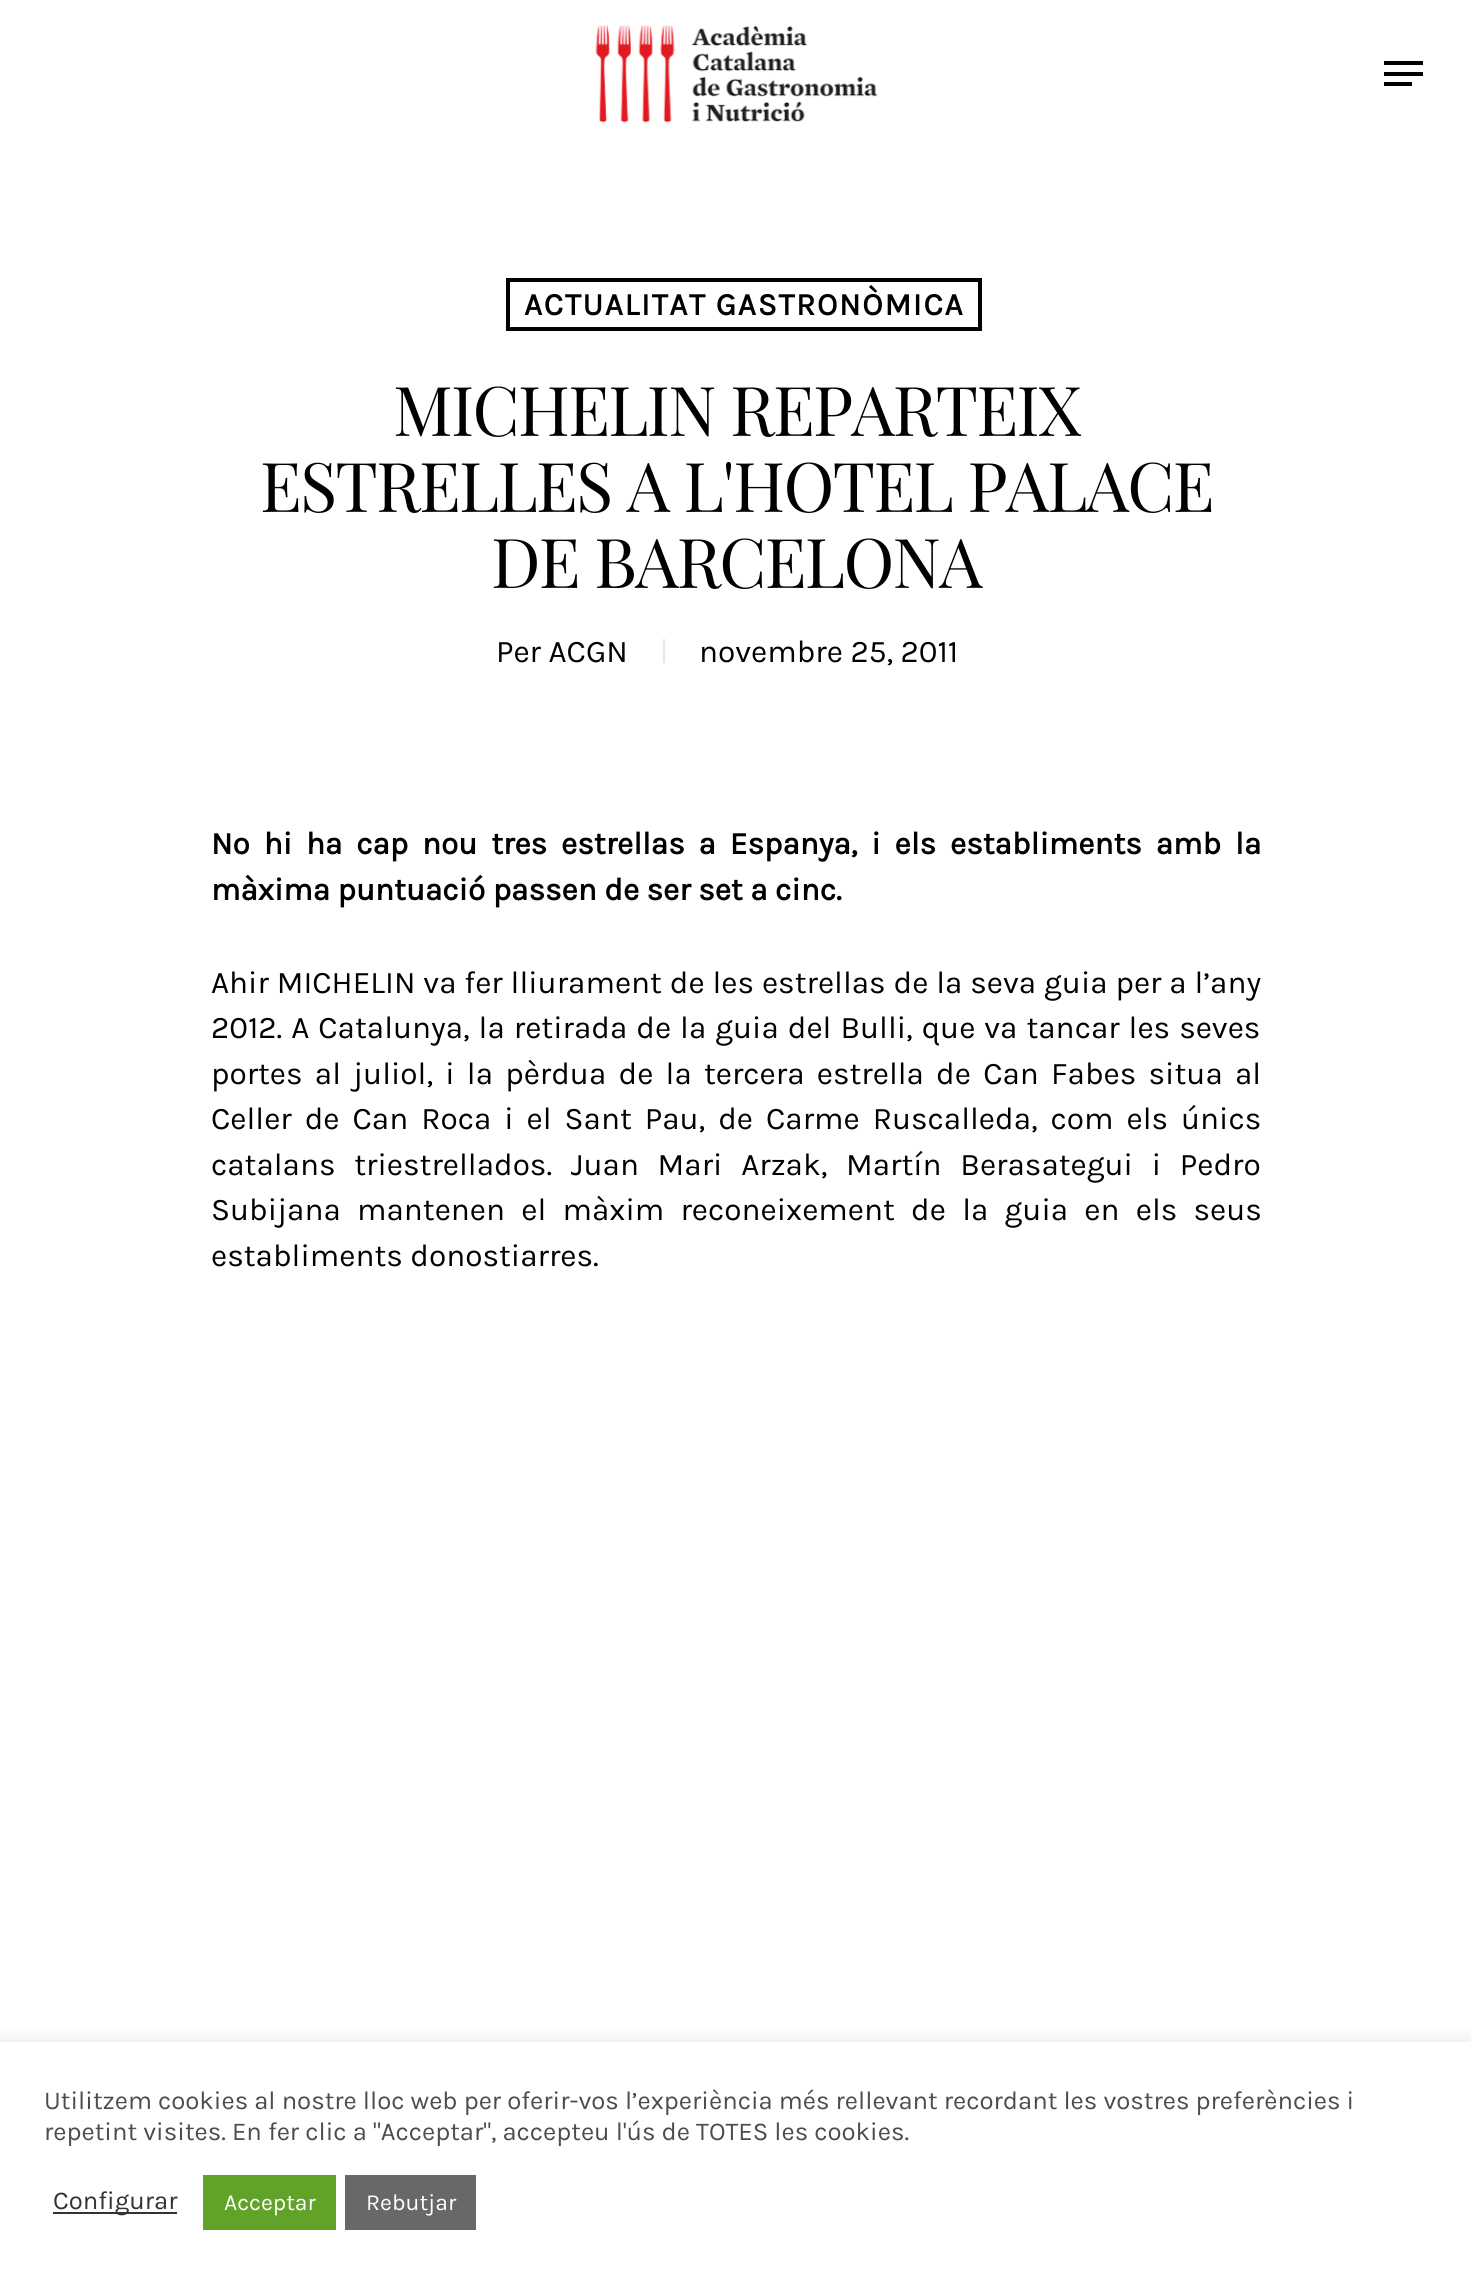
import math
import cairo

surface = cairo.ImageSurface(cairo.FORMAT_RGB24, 1471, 2282)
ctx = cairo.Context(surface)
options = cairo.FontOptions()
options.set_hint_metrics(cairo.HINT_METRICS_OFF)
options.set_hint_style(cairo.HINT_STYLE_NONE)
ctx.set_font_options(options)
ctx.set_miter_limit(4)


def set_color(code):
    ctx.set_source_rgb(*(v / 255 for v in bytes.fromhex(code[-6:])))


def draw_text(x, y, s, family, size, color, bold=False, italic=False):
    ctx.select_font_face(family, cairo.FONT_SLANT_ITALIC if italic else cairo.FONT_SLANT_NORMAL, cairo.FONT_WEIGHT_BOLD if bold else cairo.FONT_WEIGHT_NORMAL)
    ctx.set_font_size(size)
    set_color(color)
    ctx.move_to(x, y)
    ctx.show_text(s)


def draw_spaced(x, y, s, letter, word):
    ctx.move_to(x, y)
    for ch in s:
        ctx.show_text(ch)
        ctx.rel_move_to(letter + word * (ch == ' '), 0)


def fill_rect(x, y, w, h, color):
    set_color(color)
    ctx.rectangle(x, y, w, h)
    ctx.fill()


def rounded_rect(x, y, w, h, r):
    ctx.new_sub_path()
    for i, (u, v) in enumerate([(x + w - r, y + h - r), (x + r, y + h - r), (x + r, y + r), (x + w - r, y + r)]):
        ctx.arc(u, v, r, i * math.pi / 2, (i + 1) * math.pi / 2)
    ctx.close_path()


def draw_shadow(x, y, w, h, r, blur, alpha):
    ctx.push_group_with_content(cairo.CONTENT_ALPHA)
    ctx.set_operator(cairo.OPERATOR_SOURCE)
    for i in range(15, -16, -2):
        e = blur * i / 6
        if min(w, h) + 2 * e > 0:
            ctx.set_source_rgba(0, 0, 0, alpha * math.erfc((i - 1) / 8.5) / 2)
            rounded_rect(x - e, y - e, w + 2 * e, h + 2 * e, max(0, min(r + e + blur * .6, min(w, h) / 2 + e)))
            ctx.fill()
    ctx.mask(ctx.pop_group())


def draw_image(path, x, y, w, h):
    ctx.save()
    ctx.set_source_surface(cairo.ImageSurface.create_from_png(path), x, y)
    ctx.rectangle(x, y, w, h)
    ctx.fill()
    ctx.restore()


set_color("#ffffff")
ctx.paint()
draw_image("assets/img1.png", 595, 25, 283, 98)
fill_rect(1384, 61, 39, 4, "#000000")
fill_rect(1384, 82, 28, 4, "#000000")
fill_rect(1384, 72, 39, 4, "#000000")
ctx.rectangle(508, 280, 472, 49)
ctx.set_line_width(4)
ctx.stroke()
ctx.select_font_face("Karla", cairo.FONT_SLANT_NORMAL, cairo.FONT_WEIGHT_BOLD)
ctx.set_font_size(31.5)
draw_spaced(524, 315, "ACTUALITAT GASTRONÒMICA", 1.75, 0)
ctx.select_font_face("Playfair Display")
ctx.set_font_size(68.6)
draw_spaced(393, 436, "MICHELIN REPARTEIX", -1.75, 0)
draw_spaced(260, 512, "ESTRELLES A L'HOTEL PALACE", -1.75, 0)
draw_spaced(491, 588, "DE BARCELONA", -1.75, 0)
draw_text(496, 662, "Per ACGN", "Karla", 31.5, "#000000")
fill_rect(663, 639, 2, 24, "#e6e6e6")
draw_text(699, 662, "novembre 25, 2011", "Karla", 31.5, "#000000")
ctx.select_font_face("Karla", cairo.FONT_SLANT_NORMAL, cairo.FONT_WEIGHT_BOLD)
draw_spaced(211, 854, "No hi ha cap nou tres estrellas a Espanya, i els establiments amb la", 0, 6.4)
draw_text(211, 900, "màxima puntuació passen de ser set a cinc.", "Karla", 31.5, "#000000", bold=True)
ctx.select_font_face("Karla")
draw_spaced(211, 993, "Ahir MICHELIN va fer lliurament de les estrellas de la seva guia per a l’any", 0, 0.4)
draw_spaced(211, 1038, "2012. A Catalunya, la retirada de la guia del Bulli, que va tancar les seves", 0, 1.5)
draw_spaced(211, 1084, "portes al juliol, i la pèrdua de la tercera estrella de Can Fabes situa al", 0, 4.75)
draw_spaced(211, 1129, "Celler de Can Roca i el Sant Pau, de Carme Ruscalleda, com els únics", 0, 5.5)
draw_spaced(211, 1175, "catalans triestrellados. Juan Mari Arzak, Martín Berasategui i Pedro", 0, 11.25)
draw_spaced(211, 1220, "Subijana mantenen el màxim reconeixement de la guia en els seus", 0, 8.75)
draw_text(211, 1266, "establiments donostiarres.", "Karla", 31.5, "#000000")
set_color("#acabab")
draw_shadow(0, 2041, 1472, 239, 0, 9, 0.3)
fill_rect(0, 2042, 1471, 240, "#ffffff")
draw_text(44, 2109, "Utilitzem cookies al nostre lloc web per oferir-vos l’experiència més rellevant recordant les vostres preferències i", "Karla", 25.67, "#4c4c4c")
draw_text(44, 2140, "repetint visites. En fer clic a \"Acceptar\", accepteu l'ús de TOTES les cookies.", "Karla", 25.67, "#4c4c4c")
fill_rect(53, 2212, 124, 2, "#333333")
draw_text(53, 2209, "Configurar", "Karla", 25.67, "#333333")
fill_rect(203, 2175, 133, 55, "#61a229")
draw_text(224, 2210, "Acceptar", "Karla", 23, "#ffffff")
fill_rect(345, 2175, 131, 55, "#686868")
draw_text(366, 2210, "Rebutjar", "Karla", 23, "#ffffff")
surface.write_to_png("output.png")
